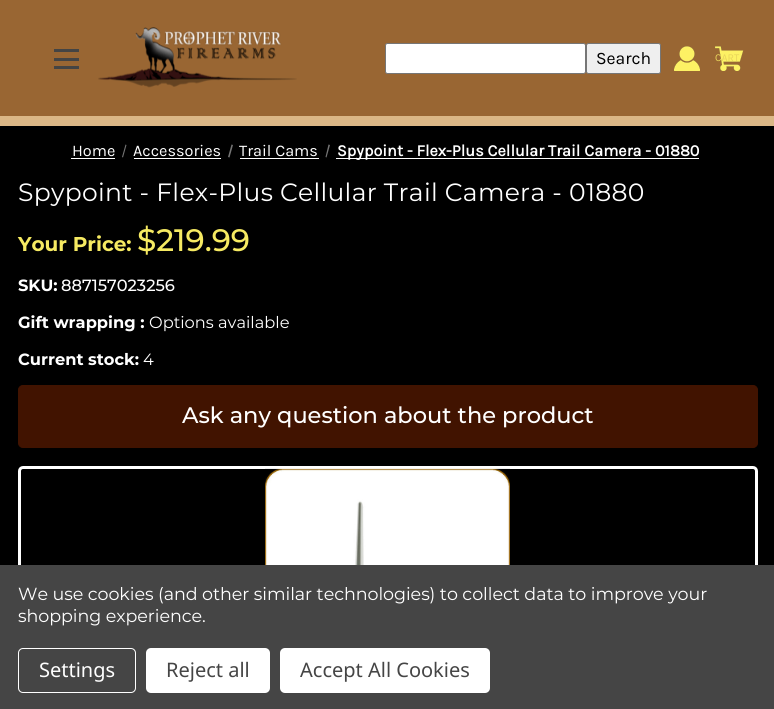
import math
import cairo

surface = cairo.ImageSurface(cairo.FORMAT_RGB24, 774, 709)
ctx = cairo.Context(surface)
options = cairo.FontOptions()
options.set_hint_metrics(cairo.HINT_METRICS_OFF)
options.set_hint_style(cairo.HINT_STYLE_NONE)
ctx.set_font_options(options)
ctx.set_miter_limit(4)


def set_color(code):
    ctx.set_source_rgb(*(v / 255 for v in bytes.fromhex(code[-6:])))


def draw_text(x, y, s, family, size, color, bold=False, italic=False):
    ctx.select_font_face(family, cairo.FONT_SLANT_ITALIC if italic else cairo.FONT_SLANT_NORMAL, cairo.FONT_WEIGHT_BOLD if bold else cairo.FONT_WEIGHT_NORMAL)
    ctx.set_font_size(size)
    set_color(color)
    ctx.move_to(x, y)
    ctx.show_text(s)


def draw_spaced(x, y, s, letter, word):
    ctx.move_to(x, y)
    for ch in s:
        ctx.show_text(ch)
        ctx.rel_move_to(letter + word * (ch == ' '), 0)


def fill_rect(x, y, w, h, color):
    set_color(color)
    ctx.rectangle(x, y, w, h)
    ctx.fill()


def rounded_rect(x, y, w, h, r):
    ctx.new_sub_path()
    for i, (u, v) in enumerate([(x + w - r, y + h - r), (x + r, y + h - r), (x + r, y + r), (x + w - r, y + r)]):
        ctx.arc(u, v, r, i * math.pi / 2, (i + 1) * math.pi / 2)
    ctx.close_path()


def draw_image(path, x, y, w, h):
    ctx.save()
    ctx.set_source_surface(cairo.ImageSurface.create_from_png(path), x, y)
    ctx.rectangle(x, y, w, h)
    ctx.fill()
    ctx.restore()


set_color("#000000")
ctx.paint()
fill_rect(0, 0, 774, 116, "#996633")
fill_rect(0, 116, 774, 10, "#dbb786")
fill_rect(54, 58, 25, 3, "#444444")
fill_rect(54, 49, 25, 3, "#444444")
fill_rect(54, 66, 25, 3, "#444444")
draw_image("assets/img1.png", 98, 27, 199, 61)
set_color("#ffffff")
rounded_rect(385.5, 43.5, 200, 30, 2)
ctx.fill_preserve()
set_color("#767676")
ctx.set_line_width(1)
ctx.stroke()
set_color("#efefef")
rounded_rect(586.5, 43.5, 74, 30, 2)
ctx.fill_preserve()
set_color("#767676")
ctx.stroke()
draw_text(596, 64, "Search", "Karla", 17.5, "#000000")
draw_image("assets/img2.png", 674, 46, 26, 25)
draw_image("assets/img3.png", 715, 46, 29, 25)
draw_text(715, 61, "CART", "Karla", 10.5, "#e8d45a")
draw_text(72, 156, "Home", "Karla", 16.25, "#ffffff")
fill_rect(71, 158, 44, 1, "#ffffff")
set_color("#757575")
ctx.new_path()
ctx.move_to(125.5, 144.5)
ctx.line_to(126.5, 145)
ctx.line_to(123, 157.5)
ctx.line_to(122, 157)
ctx.close_path()
ctx.fill()
draw_text(133, 156, "Accessories", "Karla", 16.25, "#ffffff")
fill_rect(134, 158, 87, 1, "#ffffff")
set_color("#757575")
ctx.new_path()
ctx.move_to(231.5, 144.5)
ctx.line_to(233, 145)
ctx.line_to(229.5, 157.5)
ctx.line_to(228, 157)
ctx.close_path()
ctx.fill()
draw_text(239, 156, "Trail Cams", "Karla", 16.25, "#ffffff")
fill_rect(240, 158, 79, 1, "#ffffff")
set_color("#757575")
ctx.new_path()
ctx.move_to(328.5, 144.5)
ctx.line_to(330, 145)
ctx.line_to(326.5, 157.5)
ctx.line_to(325.5, 157)
ctx.close_path()
ctx.fill()
fill_rect(336, 158, 363, 1, "#ffffff")
draw_text(337, 156, "Spypoint - Flex-Plus Cellular Trail Camera - 01880", "Karla", 16.25, "#ffffff", bold=True)
ctx.select_font_face("Montserrat")
ctx.set_font_size(25)
draw_spaced(18, 201, "Spypoint - Flex-Plus Cellular Trail Camera - 01880", 0.3, 0)
draw_text(18, 251, "Your Price:", "Montserrat", 20, "#f6ea62", bold=True)
draw_text(137, 251, "$219.99", "Montserrat Medium", 31, "#f6ea62")
draw_text(18, 291, "SKU:", "Montserrat", 16.25, "#ffffff", bold=True)
draw_text(61, 291, "887157023256", "Montserrat Medium", 16.25, "#ffffff")
draw_text(18, 328, "Gift wrapping :", "Montserrat", 16.25, "#ffffff", bold=True)
draw_text(149, 328, "Options available", "Montserrat", 16.25, "#ffffff")
draw_text(18, 365, "Current stock:", "Montserrat", 16.25, "#ffffff", bold=True)
draw_text(143, 365, "4", "Montserrat", 16.25, "#ffffff")
set_color("#411300")
rounded_rect(18.5, 385.5, 739, 62, 4.5)
ctx.fill_preserve()
ctx.stroke()
draw_text(182, 423, "Ask any question about the product", "Montserrat Medium", 22.5, "#ffffff")
rounded_rect(19.5, 467.5, 737, 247, 3.5)
ctx.set_line_width(3)
ctx.stroke()
draw_image("assets/img4.png", 265, 468, 245, 97)
fill_rect(0, 565, 774, 144, "#454545")
ctx.select_font_face("Montserrat")
ctx.set_font_size(17.5)
set_color("#ffffff")
draw_spaced(18, 600, "We use cookies (and other similar technologies) to collect data to improve your", -0.05, 0)
draw_spaced(18, 622, "shopping experience.", -0.05, 0)
rounded_rect(18.5, 648.5, 117, 44, 4.5)
ctx.set_line_width(1)
ctx.stroke()
draw_text(39, 677, "Settings", "Noto Sans", 20, "#ffffff")
rounded_rect(146, 648, 124, 45, 5)
ctx.fill()
draw_text(166, 677, "Reject all", "Noto Sans", 20, "#454545")
set_color("#ffffff")
rounded_rect(280, 648, 210, 45, 5)
ctx.fill()
draw_text(300, 677, "Accept All Cookies", "Noto Sans", 20, "#454545")
surface.write_to_png("output.png")
